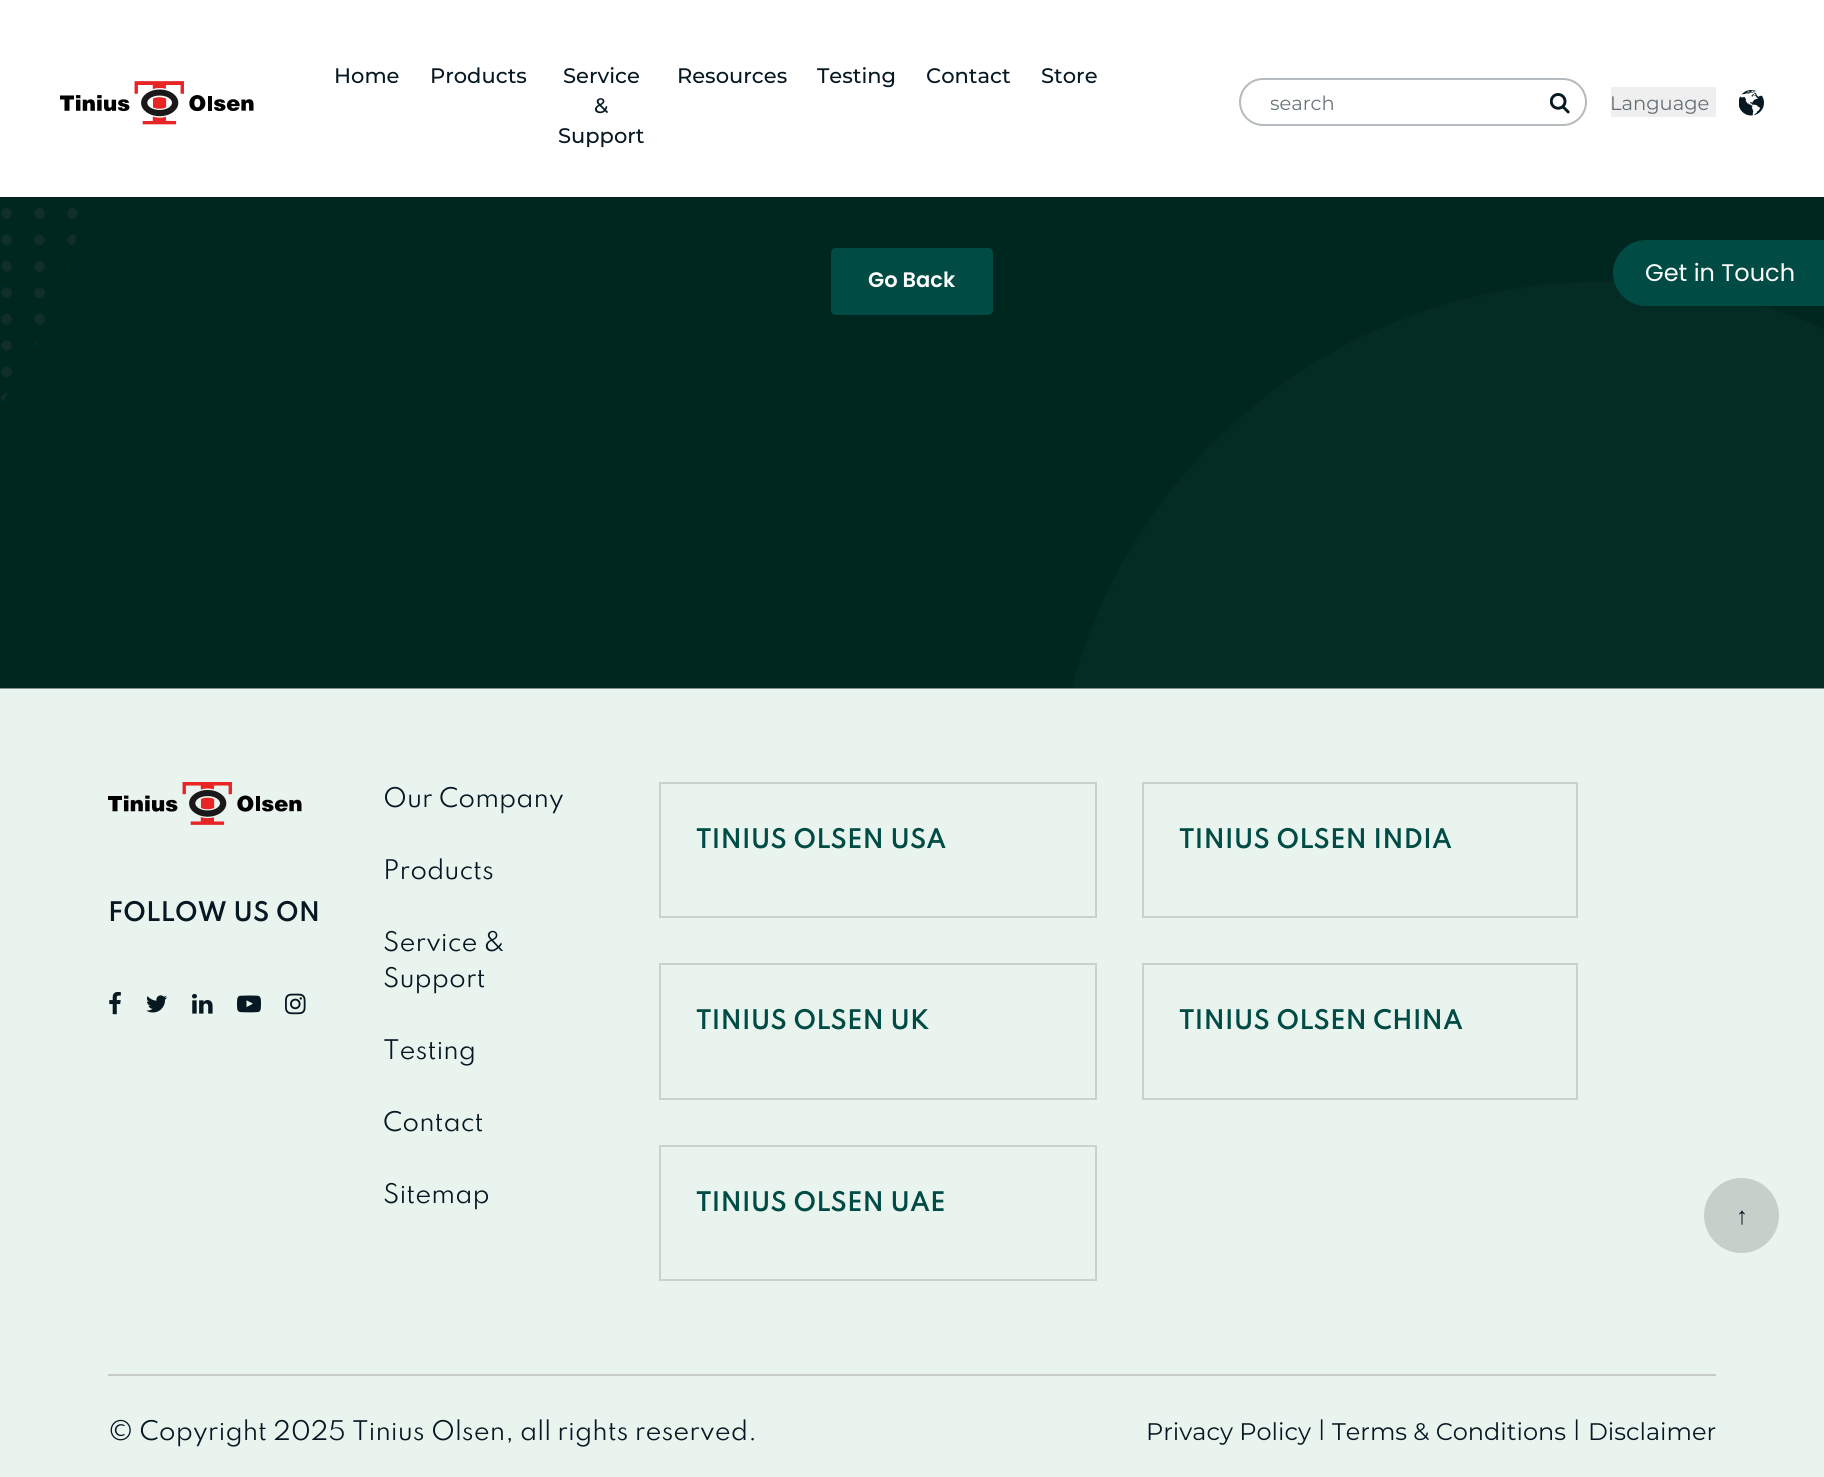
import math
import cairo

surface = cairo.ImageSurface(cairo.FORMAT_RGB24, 1824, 1477)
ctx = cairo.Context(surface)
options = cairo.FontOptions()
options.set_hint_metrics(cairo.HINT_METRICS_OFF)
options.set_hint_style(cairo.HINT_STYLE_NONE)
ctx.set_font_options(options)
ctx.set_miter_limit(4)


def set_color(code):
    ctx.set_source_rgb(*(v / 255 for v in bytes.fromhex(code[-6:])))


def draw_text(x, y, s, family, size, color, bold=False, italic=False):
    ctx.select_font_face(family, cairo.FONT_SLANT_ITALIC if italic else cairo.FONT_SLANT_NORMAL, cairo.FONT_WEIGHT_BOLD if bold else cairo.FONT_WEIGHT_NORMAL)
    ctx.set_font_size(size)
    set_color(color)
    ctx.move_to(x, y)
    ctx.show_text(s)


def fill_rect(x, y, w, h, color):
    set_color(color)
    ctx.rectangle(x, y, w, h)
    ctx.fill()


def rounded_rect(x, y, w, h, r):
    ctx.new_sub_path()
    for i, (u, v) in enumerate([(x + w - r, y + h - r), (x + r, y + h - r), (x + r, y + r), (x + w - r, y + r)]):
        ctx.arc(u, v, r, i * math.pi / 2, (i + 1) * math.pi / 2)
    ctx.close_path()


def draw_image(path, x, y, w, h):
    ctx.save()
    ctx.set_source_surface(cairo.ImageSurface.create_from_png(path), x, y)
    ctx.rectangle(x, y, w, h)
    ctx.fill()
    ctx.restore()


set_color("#ffffff")
ctx.paint()
draw_image("assets/img1.png", 60, 81, 194, 44)
draw_text(334, 83, "Home", "Montserrat Medium", 21, "#061922")
draw_text(430, 83, "Products", "Montserrat Medium", 21, "#061922")
draw_text(563, 83, "Service", "Montserrat Medium", 21, "#061922")
draw_text(594, 113, "&", "Montserrat Medium", 21, "#061922")
draw_text(558, 143, "Support", "Montserrat Medium", 21, "#061922")
draw_text(677, 83, "Resources", "Montserrat Medium", 21, "#061922")
draw_text(817, 83, "Testing", "Montserrat Medium", 21, "#061922")
draw_text(926, 83, "Contact", "Montserrat Medium", 21, "#061922")
draw_text(1041, 83, "Store", "Montserrat Medium", 21, "#061922")
rounded_rect(1240, 79, 346, 46, 23)
set_color("#b4babd")
ctx.stroke()
ctx.save()
ctx.rectangle(1271, 90, 264, 24)
ctx.clip()
draw_text(1270, 110, "search", "Montserrat Thin", 19.5, "#6a757a")
ctx.restore()
draw_image("assets/img2.png", 1550, 93, 20, 21)
fill_rect(1611, 87, 105, 30, "#efefef")
draw_text(1610, 110, "Language", "Montserrat Thin", 19.5, "#636f74")
draw_image("assets/img3.png", 1739, 90, 25, 26)
draw_image("assets/img4.png", 0, 197, 1824, 492)
set_color("#004c45")
rounded_rect(831, 248, 162, 67, 5)
ctx.fill()
draw_text(868, 287, "Go Back", "Poppins SemiBold", 21, "#ffffff")
fill_rect(0, 689, 1824, 788, "#eaf4ef")
set_color("#004c45")
ctx.new_path()
ctx.move_to(1646, 240)
ctx.line_to(1823, 240)
ctx.curve_to(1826.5, 240, 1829, 242.5, 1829, 246)
ctx.line_to(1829, 300)
ctx.curve_to(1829, 303.5, 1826.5, 306, 1823, 306)
ctx.line_to(1646, 306)
ctx.curve_to(1628, 306, 1613, 291, 1613, 273)
ctx.curve_to(1613, 255, 1628, 240, 1646, 240)
ctx.close_path()
ctx.fill()
draw_text(1645, 281, "Get in Touch", "Poppins", 24, "#ffffff")
fill_rect(108, 1374, 1608, 2, "#c7ccc9")
draw_image("assets/img5.png", 108, 782, 194, 43)
draw_text(108, 921, "FOLLOW US ON", "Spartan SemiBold", 24, "#061922")
draw_image("assets/img6.png", 109, 991, 12, 24)
draw_image("assets/img7.png", 146, 995, 21, 18)
draw_image("assets/img8.png", 192, 993, 21, 21)
draw_image("assets/img9.png", 237, 995, 24, 18)
draw_image("assets/img10.png", 285, 993, 21, 22)
draw_text(383, 807, "Our Company", "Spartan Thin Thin", 24, "#061922")
draw_text(383, 879, "Products", "Spartan Thin Thin", 24, "#061922")
draw_text(383, 951, "Service &", "Spartan Thin Thin", 24, "#061922")
draw_text(383, 987, "Support", "Spartan Thin Thin", 24, "#061922")
draw_text(383, 1059, "Testing", "Spartan Thin Thin", 24, "#061922")
draw_text(383, 1131, "Contact", "Spartan Thin Thin", 24, "#061922")
draw_text(383, 1203, "Sitemap", "Spartan Thin Thin", 24, "#061922")
ctx.rectangle(660, 783, 436, 134)
set_color("#cbd2ce")
ctx.stroke()
draw_text(696, 848, "TINIUS OLSEN USA", "Spartan SemiBold", 24, "#004c45")
ctx.rectangle(660, 964, 436, 135)
set_color("#cbd2ce")
ctx.stroke()
draw_text(696, 1029, "TINIUS OLSEN UK", "Spartan SemiBold", 24, "#004c45")
ctx.rectangle(660, 1146, 436, 134)
set_color("#cbd2ce")
ctx.stroke()
draw_text(696, 1211, "TINIUS OLSEN UAE", "Spartan SemiBold", 24, "#004c45")
ctx.rectangle(1143, 783, 434, 134)
set_color("#cbd2ce")
ctx.stroke()
draw_text(1179, 848, "TINIUS OLSEN INDIA", "Spartan SemiBold", 24, "#004c45")
ctx.rectangle(1143, 964, 434, 135)
set_color("#cbd2ce")
ctx.stroke()
draw_text(1179, 1029, "TINIUS OLSEN CHINA", "Spartan SemiBold", 24, "#004c45")
draw_text(108, 1440, "© Copyright 2025 Tinius Olsen, all rights reserved.", "Spartan Thin Thin", 24, "#061922")
draw_text(1146, 1440, "Privacy Policy", "Montserrat Thin", 24, "#061922")
draw_text(1317, 1440, "|", "Spartan Thin Thin", 24, "#061922")
draw_text(1332, 1440, "Terms & Conditions", "Montserrat Thin", 24, "#061922")
draw_text(1572, 1440, "|", "Spartan Thin Thin", 24, "#061922")
draw_text(1588, 1440, "Disclaimer", "Montserrat Thin", 24, "#061922")
set_color("#c7cfcb")
ctx.new_path()
ctx.arc(1741.5, 1215.5, 37.5, 0, 2 * math.pi)
ctx.fill()
draw_text(1736, 1224, "↑", "Liberation Serif", 24, "#061922")
surface.write_to_png("output.png")
